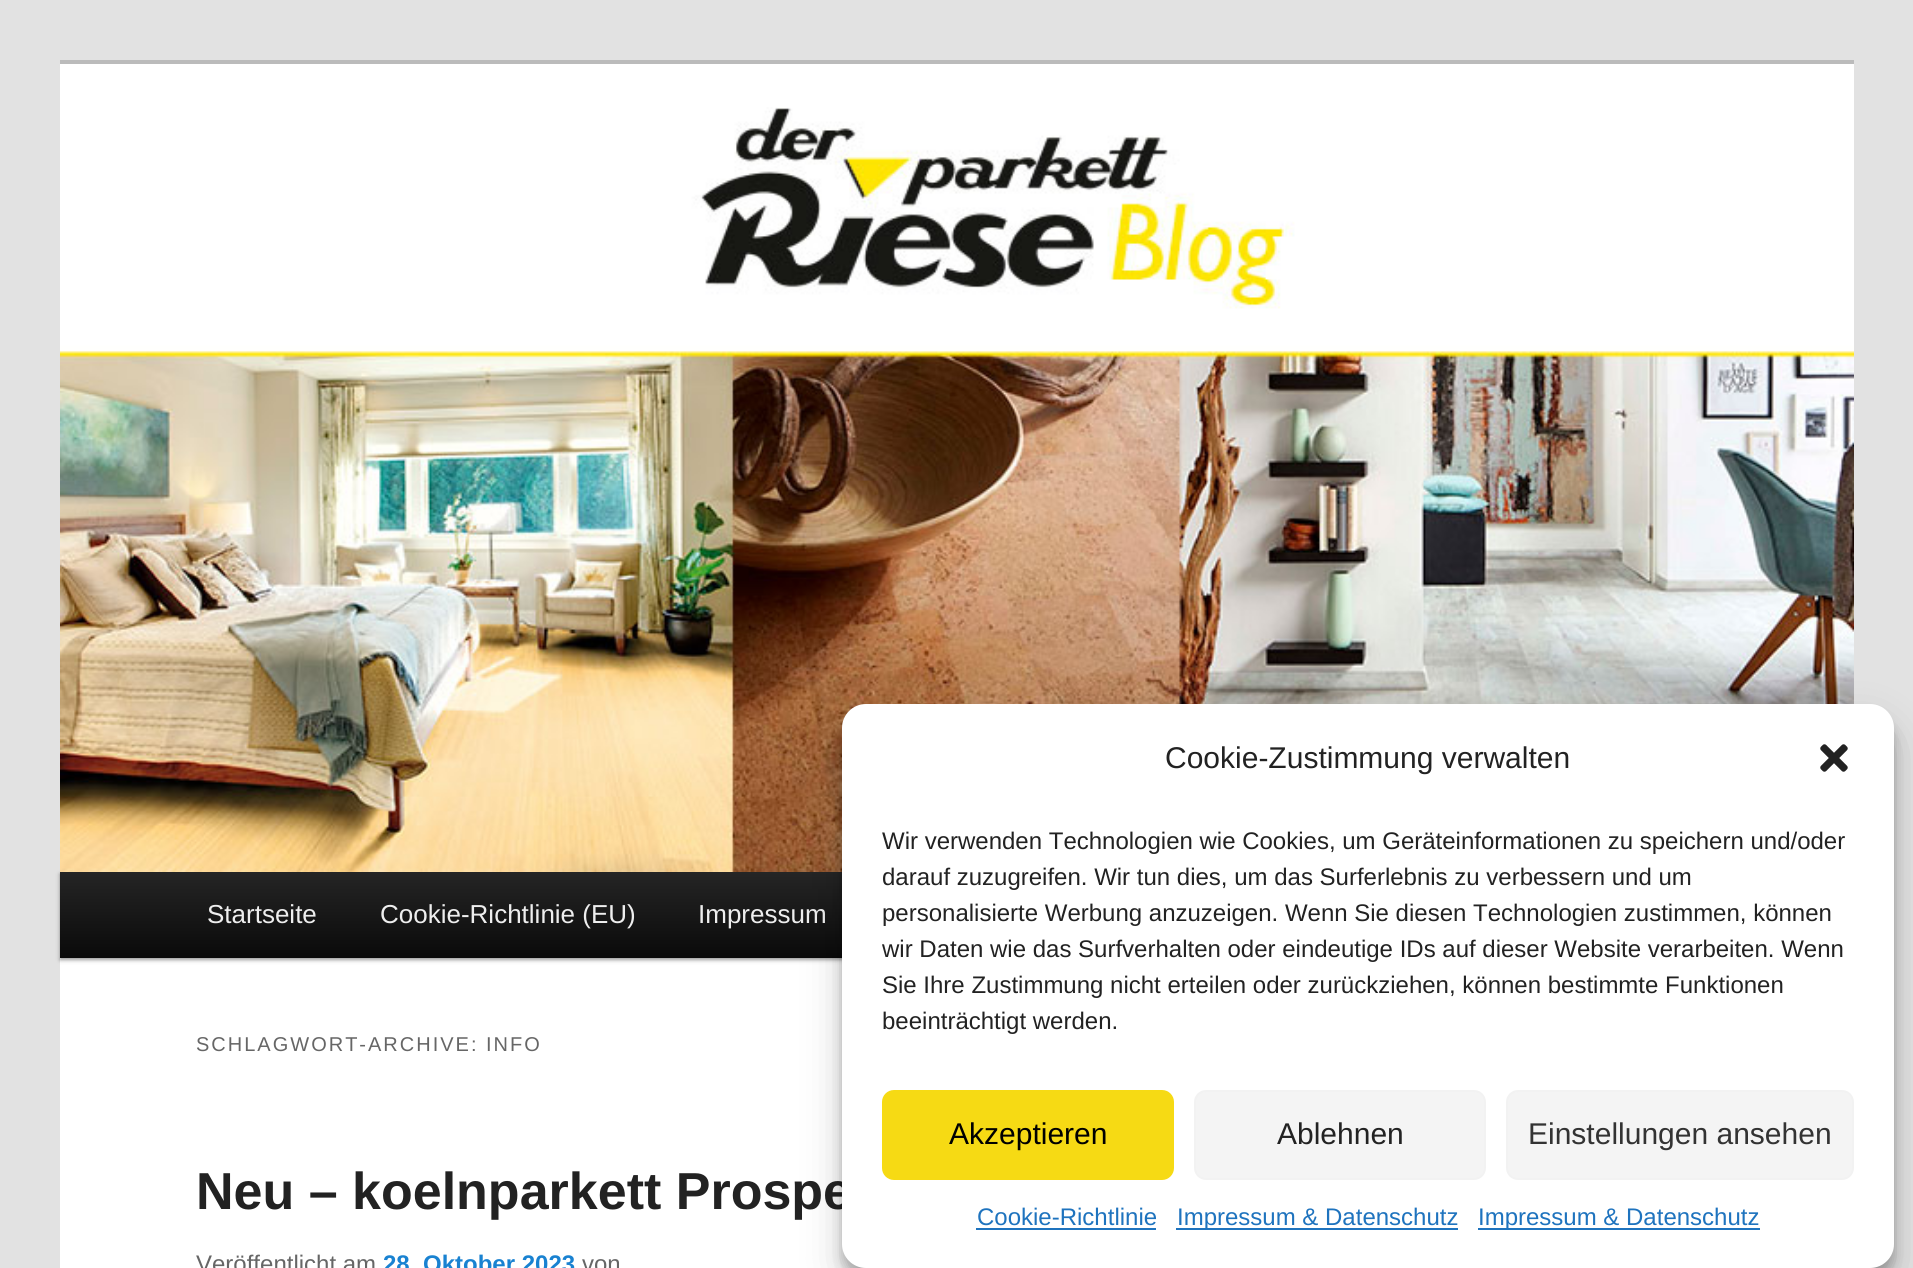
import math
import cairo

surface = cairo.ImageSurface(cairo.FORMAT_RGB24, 1913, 1268)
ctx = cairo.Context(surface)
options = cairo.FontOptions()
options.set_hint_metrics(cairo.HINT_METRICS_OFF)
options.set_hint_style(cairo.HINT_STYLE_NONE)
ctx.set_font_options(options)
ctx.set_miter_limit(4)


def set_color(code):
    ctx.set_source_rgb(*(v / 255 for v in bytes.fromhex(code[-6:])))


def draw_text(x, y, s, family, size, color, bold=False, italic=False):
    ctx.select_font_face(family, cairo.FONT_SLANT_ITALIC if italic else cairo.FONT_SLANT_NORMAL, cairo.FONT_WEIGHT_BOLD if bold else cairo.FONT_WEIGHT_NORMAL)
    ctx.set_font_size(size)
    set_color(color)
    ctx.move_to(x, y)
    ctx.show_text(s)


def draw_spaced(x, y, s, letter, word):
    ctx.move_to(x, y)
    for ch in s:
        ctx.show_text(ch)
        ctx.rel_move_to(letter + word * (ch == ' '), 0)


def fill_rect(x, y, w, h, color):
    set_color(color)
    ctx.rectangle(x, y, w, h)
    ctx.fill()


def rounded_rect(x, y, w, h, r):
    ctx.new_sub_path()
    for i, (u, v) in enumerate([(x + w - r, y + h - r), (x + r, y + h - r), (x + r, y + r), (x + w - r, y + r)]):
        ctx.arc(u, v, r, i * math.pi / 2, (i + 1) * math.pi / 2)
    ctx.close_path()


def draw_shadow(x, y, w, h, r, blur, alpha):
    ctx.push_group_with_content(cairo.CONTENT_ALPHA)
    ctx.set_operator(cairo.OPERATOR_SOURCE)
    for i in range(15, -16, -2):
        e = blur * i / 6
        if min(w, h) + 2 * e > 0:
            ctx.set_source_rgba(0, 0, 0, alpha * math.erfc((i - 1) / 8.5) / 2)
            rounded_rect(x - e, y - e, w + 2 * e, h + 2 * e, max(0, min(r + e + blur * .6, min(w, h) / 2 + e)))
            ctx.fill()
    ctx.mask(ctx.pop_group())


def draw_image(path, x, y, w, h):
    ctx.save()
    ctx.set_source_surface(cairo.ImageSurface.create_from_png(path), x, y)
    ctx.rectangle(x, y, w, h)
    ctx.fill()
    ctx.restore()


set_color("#e2e2e2")
ctx.paint()
fill_rect(60, 64, 1794, 1204, "#ffffff")
fill_rect(60, 60, 1794, 4, "#bbbbbb")
set_color("#000000")
draw_shadow(60, 874, 1794, 86, 0, 2, 0.4)
draw_image("assets/img1.png", 60, 107, 1794, 765)
gradient = cairo.LinearGradient(957, 872, 957, 958)
gradient.add_color_stop_rgba(0, 0.145, 0.145, 0.145, 1)
gradient.add_color_stop_rgba(1, 0.039, 0.039, 0.039, 1)
ctx.set_source(gradient)
ctx.rectangle(60, 872, 782, 86)
ctx.fill()
draw_text(207, 923, "Startseite", "Liberation Sans", 26, "#eeeeee")
draw_text(380, 923, "Cookie-Richtlinie (EU)", "Liberation Sans", 26, "#eeeeee")
draw_text(698, 923, "Impressum", "Liberation Sans", 26, "#eeeeee")
ctx.set_font_size(20)
set_color("#666666")
draw_spaced(196, 1051, "SCHLAGWORT-ARCHIVE: INFO", 2, 0)
draw_text(196, 1209, "Neu – koelnparkett Prospe", "Liberation Sans", 52, "#222222", bold=True)
draw_text(196, 1272, "Veröffentlicht am", "Liberation Sans", 24, "#666666")
draw_text(383, 1272, "28. Oktober 2023", "Liberation Sans", 24, "#1982d1", bold=True)
draw_text(582, 1272, "von", "Liberation Sans", 24, "#666666")
set_color("#000000")
draw_shadow(842, 716, 1052, 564, 24, 6, 0.23)
draw_shadow(842, 724, 1052, 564, 24, 20, 0.19)
set_color("#ffffff")
rounded_rect(842, 704, 1052, 564, 24)
ctx.fill()
draw_text(1165, 768, "Cookie-Zustimmung verwalten", "Liberation Sans", 30, "#222222")
draw_image("assets/img2.png", 1820, 744, 28, 28)
draw_text(882, 849, "Wir verwenden Technologien wie Cookies, um Geräteinformationen zu speichern und/oder", "Liberation Sans", 24, "#222222")
draw_text(882, 885, "darauf zuzugreifen. Wir tun dies, um das Surferlebnis zu verbessern und um", "Liberation Sans", 24, "#222222")
draw_text(882, 921, "personalisierte Werbung anzuzeigen. Wenn Sie diesen Technologien zustimmen, können", "Liberation Sans", 24, "#222222")
draw_text(882, 957, "wir Daten wie das Surfverhalten oder eindeutige IDs auf dieser Website verarbeiten. Wenn", "Liberation Sans", 24, "#222222")
draw_text(882, 993, "Sie Ihre Zustimmung nicht erteilen oder zurückziehen, können bestimmte Funktionen", "Liberation Sans", 24, "#222222")
draw_text(882, 1029, "beeinträchtigt werden.", "Liberation Sans", 24, "#222222")
set_color("#f6da14")
rounded_rect(883, 1091, 290, 88, 11)
ctx.fill_preserve()
ctx.stroke()
draw_text(949, 1144, "Akzeptieren", "Liberation Sans", 30, "#000000")
set_color("#f4f4f4")
rounded_rect(1195, 1091, 290, 88, 11)
ctx.fill_preserve()
set_color("#f2f2f2")
ctx.stroke()
draw_text(1277, 1144, "Ablehnen", "Liberation Sans", 30, "#222222")
set_color("#f4f4f4")
rounded_rect(1507, 1091, 346, 88, 11)
ctx.fill_preserve()
set_color("#f2f2f2")
ctx.stroke()
draw_text(1528, 1144, "Einstellungen ansehen", "Liberation Sans", 30, "#333333")
draw_text(977, 1225, "Cookie-Richtlinie", "Liberation Sans", 24, "#1e73be")
fill_rect(976, 1228, 180, 2, "#1e73be")
fill_rect(1176, 1228, 282, 2, "#1e73be")
draw_text(1177, 1225, "Impressum & Datenschutz", "Liberation Sans", 24, "#1e73be")
fill_rect(1478, 1228, 282, 2, "#1e73be")
draw_text(1478, 1225, "Impressum & Datenschutz", "Liberation Sans", 24, "#1e73be")
surface.write_to_png("output.png")
